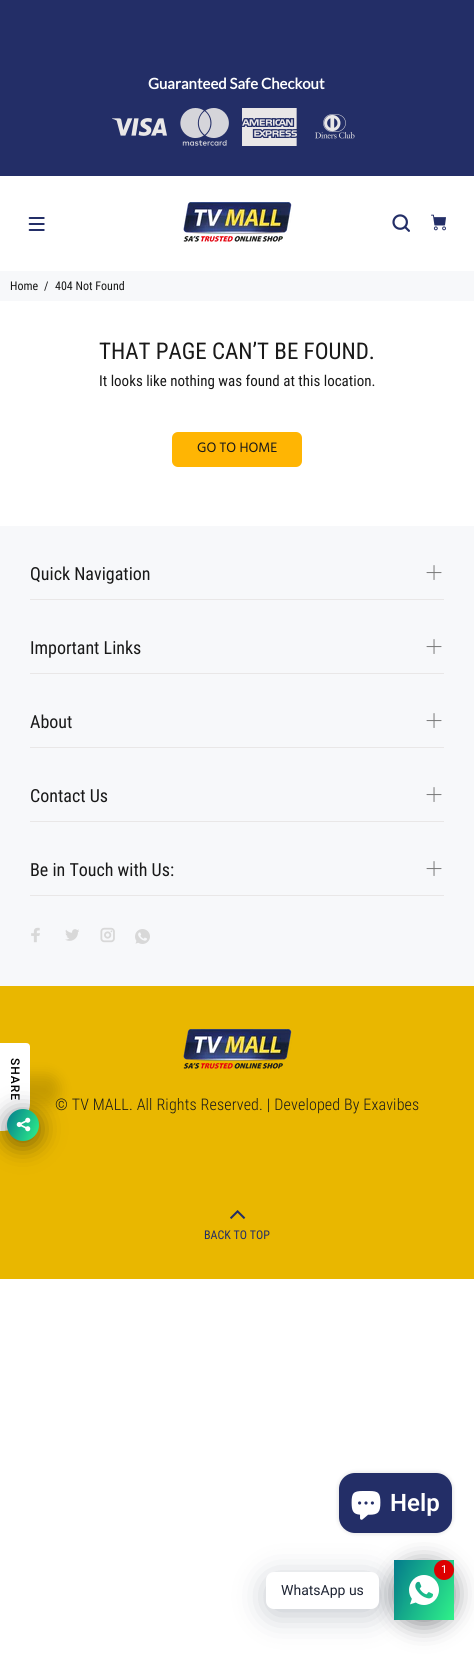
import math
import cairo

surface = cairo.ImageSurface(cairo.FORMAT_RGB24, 474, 1658)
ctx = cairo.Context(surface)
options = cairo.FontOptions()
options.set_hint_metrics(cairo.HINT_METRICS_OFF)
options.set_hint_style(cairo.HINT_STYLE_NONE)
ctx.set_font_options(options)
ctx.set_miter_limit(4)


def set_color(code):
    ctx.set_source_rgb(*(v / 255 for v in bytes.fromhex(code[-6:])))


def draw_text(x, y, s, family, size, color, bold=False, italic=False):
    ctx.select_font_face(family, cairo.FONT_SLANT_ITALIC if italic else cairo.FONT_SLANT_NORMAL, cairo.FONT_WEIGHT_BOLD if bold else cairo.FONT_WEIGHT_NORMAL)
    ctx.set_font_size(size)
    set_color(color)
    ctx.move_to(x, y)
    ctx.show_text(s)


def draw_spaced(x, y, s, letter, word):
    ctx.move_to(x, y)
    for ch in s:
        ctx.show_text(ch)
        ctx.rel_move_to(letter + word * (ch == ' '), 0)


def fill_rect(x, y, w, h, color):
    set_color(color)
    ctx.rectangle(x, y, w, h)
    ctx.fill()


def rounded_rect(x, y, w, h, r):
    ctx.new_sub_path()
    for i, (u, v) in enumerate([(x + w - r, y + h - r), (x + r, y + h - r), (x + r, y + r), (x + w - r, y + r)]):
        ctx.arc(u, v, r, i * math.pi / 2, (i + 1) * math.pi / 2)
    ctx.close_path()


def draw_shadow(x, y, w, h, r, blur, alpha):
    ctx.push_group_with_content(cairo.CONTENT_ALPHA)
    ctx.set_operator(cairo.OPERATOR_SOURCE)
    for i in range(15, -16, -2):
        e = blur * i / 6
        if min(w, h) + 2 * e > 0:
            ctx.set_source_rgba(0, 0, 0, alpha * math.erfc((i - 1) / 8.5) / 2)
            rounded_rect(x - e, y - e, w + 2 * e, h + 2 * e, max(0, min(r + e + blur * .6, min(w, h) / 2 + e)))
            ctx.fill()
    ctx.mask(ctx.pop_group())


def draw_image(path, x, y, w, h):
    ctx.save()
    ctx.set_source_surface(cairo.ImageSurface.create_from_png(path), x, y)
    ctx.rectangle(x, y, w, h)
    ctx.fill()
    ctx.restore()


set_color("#ffffff")
ctx.paint()
fill_rect(0, 0, 474, 176, "#232e67")
draw_text(148, 89, "Guaranteed Safe Checkout", "Lato", 15, "#ffffff", bold=True)
draw_image("assets/img1.png", 112, 118, 55, 18)
draw_image("assets/img2.png", 180, 108, 49, 38)
draw_image("assets/img3.png", 242, 108, 55, 38)
draw_image("assets/img4.png", 315, 114, 40, 25)
draw_image("assets/img5.png", 28, 217, 17, 14)
draw_image("assets/img6.png", 183, 202, 109, 40)
draw_image("assets/img7.png", 392, 214, 18, 18)
draw_image("assets/img8.png", 431, 214, 15, 17)
fill_rect(0, 271, 474, 30, "#f7f8fa")
draw_text(10, 290, "Home", "Roboto Condensed", 12, "#191919")
draw_text(44, 290, "/", "Roboto Condensed", 12, "#191919")
draw_text(55, 290, "404 Not Found", "Roboto Condensed", 12, "#191919")
draw_text(99, 359, "THAT PAGE CAN’T BE FOUND.", "Roboto Condensed", 23, "#191919")
draw_text(99, 386, "It looks like nothing was found at this location.", "Roboto Condensed", 15, "#191919")
set_color("#ffb503")
rounded_rect(172, 432, 130, 35, 6)
ctx.fill()
draw_text(197, 452, "GO TO HOME", "Hind", 14, "#191919")
fill_rect(0, 526, 474, 460, "#f7f8fa")
fill_rect(30, 599, 414, 1, "#e9e7e7")
draw_text(30, 580, "Quick Navigation", "Roboto Condensed", 18, "#191919")
draw_image("assets/img9.png", 426, 565, 16, 15)
fill_rect(30, 673, 414, 1, "#e9e7e7")
draw_text(30, 654, "Important Links", "Roboto Condensed", 18, "#191919")
draw_image("assets/img9.png", 426, 639, 16, 15)
fill_rect(30, 747, 414, 1, "#e9e7e7")
draw_text(30, 728, "About", "Roboto Condensed", 18, "#191919")
draw_image("assets/img9.png", 426, 713, 16, 15)
fill_rect(30, 821, 414, 1, "#e9e7e7")
draw_text(30, 802, "Contact Us", "Roboto Condensed", 18, "#191919")
draw_image("assets/img9.png", 426, 787, 16, 15)
fill_rect(30, 895, 414, 1, "#e9e7e7")
draw_text(30, 876, "Be in Touch with Us:", "Roboto Condensed", 18, "#191919")
draw_image("assets/img9.png", 426, 861, 16, 15)
draw_image("assets/img10.png", 31, 927, 9, 16)
draw_image("assets/img11.png", 65, 929, 14, 12)
draw_image("assets/img12.png", 100, 927, 15, 16)
draw_image("assets/img13.png", 135, 929, 15, 15)
fill_rect(0, 986, 474, 293, "#e9b700")
draw_image("assets/img14.png", 183, 1028, 109, 41)
ctx.select_font_face("Roboto Condensed Light")
ctx.set_font_size(16)
set_color("#191919")
draw_spaced(55, 1110, "© TV MALL. All Rights Reserved. | Developed By Exavibes", 0.15, 0)
set_color("#000000")
draw_shadow(-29, 1075, 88, 30, 28, 7, 0.15)
set_color("#ffffff")
ctx.new_path()
ctx.move_to(0, 1131)
ctx.line_to(0, 1043)
ctx.line_to(26, 1043)
ctx.curve_to(28, 1043, 30, 1044, 30, 1047)
ctx.line_to(30, 1103)
ctx.curve_to(30, 1118, 17, 1131, 2, 1131)
ctx.close_path()
ctx.fill()
ctx.select_font_face("Roboto Medium")
ctx.set_font_size(12)
set_color("#000000")
ctx.save()
ctx.translate(11, 1058)
ctx.rotate(90 * math.pi / 180)
draw_spaced(0, 0, "SHARE", 1, 0)
ctx.restore()
set_color("#020610")
draw_shadow(7, 1113, 32, 32, 16, 12, 0.5)
gradient = cairo.LinearGradient(3.7, 1116, 42, 1134)
gradient.add_color_stop_rgba(0, 0.016, 0.486, 0.553, 1)
gradient.add_color_stop_rgba(1, 0.184, 0.949, 0.537, 1)
ctx.set_source(gradient)
ctx.arc(23, 1125, 16, 0, 2 * math.pi)
ctx.fill()
draw_image("assets/img15.png", 16, 1117, 15, 15)
set_color("#020610")
draw_shadow(394, 1564, 60, 60, 30, 12, 0.5)
gradient = cairo.LinearGradient(388, 1573, 460, 1607)
gradient.add_color_stop_rgba(0, 0.016, 0.486, 0.553, 1)
gradient.add_color_stop_rgba(1, 0.184, 0.949, 0.537, 1)
ctx.set_source(gradient)
ctx.rectangle(394, 1560, 60, 60)
ctx.fill()
set_color("#00122e")
draw_shadow(266, 1578, 113, 37, 8, 16, 0.24)
draw_image("assets/img16.png", 409, 1575, 30, 30)
set_color("#dd0000")
ctx.arc(444, 1570, 10, 0, 2 * math.pi)
ctx.fill()
draw_text(441, 1573, "1", "Roboto", 11, "#ffffff")
rounded_rect(266, 1572, 113, 37, 8)
ctx.fill()
draw_text(281, 1595, "WhatsApp us", "Roboto", 14, "#1e2433")
draw_image("assets/img17.png", 230, 1210, 16, 9)
draw_text(204, 1239, "BACK TO TOP", "Roboto Condensed", 12, "#232e67")
set_color("#000000")
draw_shadow(339, 1473, 113, 60, 16, 2.5, 0.15)
set_color("#232e67")
rounded_rect(339, 1473, 113, 60, 16)
ctx.fill()
draw_image("assets/img18.png", 351, 1491, 30, 29)
draw_text(390, 1511, "Help", "Roboto SemiBold", 24, "#ffffff")
surface.write_to_png("output.png")
